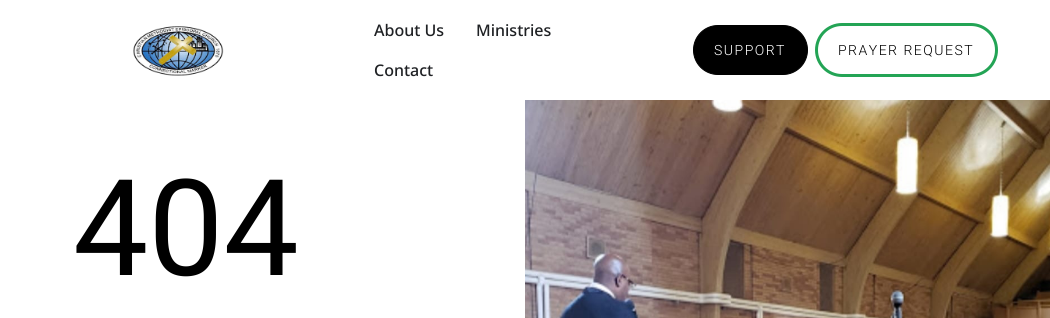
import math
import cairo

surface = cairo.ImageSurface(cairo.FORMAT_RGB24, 1050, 318)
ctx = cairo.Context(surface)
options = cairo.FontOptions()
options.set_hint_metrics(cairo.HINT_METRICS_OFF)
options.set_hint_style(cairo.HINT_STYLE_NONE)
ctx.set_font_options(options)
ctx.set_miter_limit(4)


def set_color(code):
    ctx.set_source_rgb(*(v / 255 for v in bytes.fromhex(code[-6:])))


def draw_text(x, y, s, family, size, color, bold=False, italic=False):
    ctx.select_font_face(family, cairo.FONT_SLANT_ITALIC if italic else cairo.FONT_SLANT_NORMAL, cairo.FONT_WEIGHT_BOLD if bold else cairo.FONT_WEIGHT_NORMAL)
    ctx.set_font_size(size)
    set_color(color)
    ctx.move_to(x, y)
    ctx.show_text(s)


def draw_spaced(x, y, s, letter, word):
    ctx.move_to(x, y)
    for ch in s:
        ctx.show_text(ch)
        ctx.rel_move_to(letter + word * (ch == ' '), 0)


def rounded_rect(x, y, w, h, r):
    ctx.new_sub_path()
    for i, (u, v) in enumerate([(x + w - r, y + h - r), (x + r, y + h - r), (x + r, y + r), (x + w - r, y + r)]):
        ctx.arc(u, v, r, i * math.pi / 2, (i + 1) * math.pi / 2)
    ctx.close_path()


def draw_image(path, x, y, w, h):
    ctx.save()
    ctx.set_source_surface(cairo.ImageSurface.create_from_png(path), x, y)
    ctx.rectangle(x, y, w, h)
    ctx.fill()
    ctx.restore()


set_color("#ffffff")
ctx.paint()
draw_image("assets/img1.png", 133, 26, 91, 50)
draw_text(374, 36, "About Us", "Noto Sans Medium", 16, "#1f2124")
draw_text(476, 36, "Ministries", "Noto Sans Medium", 16, "#1f2124")
draw_text(374, 76, "Contact", "Noto Sans Medium", 16, "#1f2124")
set_color("#000000")
rounded_rect(693.5, 25.5, 114, 49, 24.5)
ctx.fill_preserve()
ctx.set_line_width(1)
ctx.stroke()
ctx.select_font_face("Roboto Light")
ctx.set_font_size(14)
set_color("#ffffff")
draw_spaced(714, 55, "SUPPORT", 1.5, 0)
rounded_rect(816.5, 24.5, 180, 51, 25.5)
set_color("#23a455")
ctx.set_line_width(3)
ctx.stroke()
set_color("#000000")
draw_spaced(838, 55, "PRAYER REQUEST", 1.5, 0)
draw_text(73, 275, "404", "Roboto", 134, "#000000")
draw_image("assets/img2.png", 525, 100, 525, 218)
surface.write_to_png("output.png")
